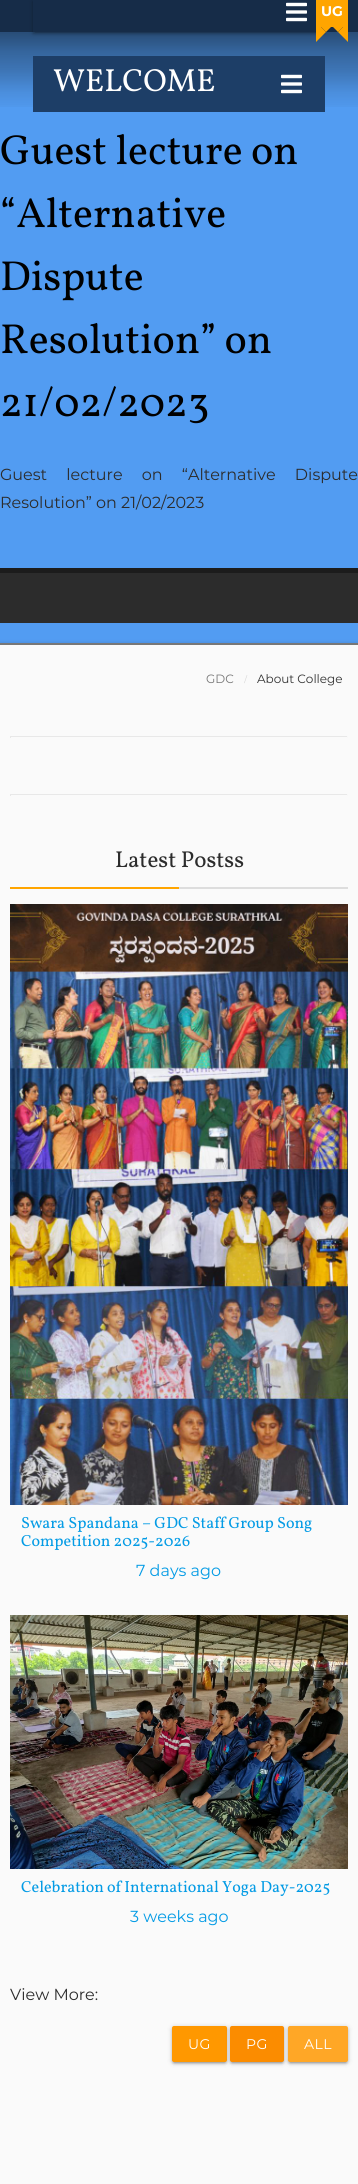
import math
import cairo

surface = cairo.ImageSurface(cairo.FORMAT_RGB24, 358, 2184)
ctx = cairo.Context(surface)
options = cairo.FontOptions()
options.set_hint_metrics(cairo.HINT_METRICS_OFF)
options.set_hint_style(cairo.HINT_STYLE_NONE)
ctx.set_font_options(options)
ctx.set_miter_limit(4)


def set_color(code):
    ctx.set_source_rgb(*(v / 255 for v in bytes.fromhex(code[-6:])))


def draw_text(x, y, s, family, size, color, bold=False, italic=False):
    ctx.select_font_face(family, cairo.FONT_SLANT_ITALIC if italic else cairo.FONT_SLANT_NORMAL, cairo.FONT_WEIGHT_BOLD if bold else cairo.FONT_WEIGHT_NORMAL)
    ctx.set_font_size(size)
    set_color(color)
    ctx.move_to(x, y)
    ctx.show_text(s)


def draw_spaced(x, y, s, letter, word):
    ctx.move_to(x, y)
    for ch in s:
        ctx.show_text(ch)
        ctx.rel_move_to(letter + word * (ch == ' '), 0)


def fill_rect(x, y, w, h, color):
    set_color(color)
    ctx.rectangle(x, y, w, h)
    ctx.fill()


def rounded_rect(x, y, w, h, r):
    ctx.new_sub_path()
    for i, (u, v) in enumerate([(x + w - r, y + h - r), (x + r, y + h - r), (x + r, y + r), (x + w - r, y + r)]):
        ctx.arc(u, v, r, i * math.pi / 2, (i + 1) * math.pi / 2)
    ctx.close_path()


def draw_shadow(x, y, w, h, r, blur, alpha):
    ctx.push_group_with_content(cairo.CONTENT_ALPHA)
    ctx.set_operator(cairo.OPERATOR_SOURCE)
    for i in range(15, -16, -2):
        e = blur * i / 6
        if min(w, h) + 2 * e > 0:
            ctx.set_source_rgba(0, 0, 0, alpha * math.erfc((i - 1) / 8.5) / 2)
            rounded_rect(x - e, y - e, w + 2 * e, h + 2 * e, max(0, min(r + e + blur * .6, min(w, h) / 2 + e)))
            ctx.fill()
    ctx.mask(ctx.pop_group())


def draw_image(path, x, y, w, h):
    ctx.save()
    ctx.set_source_surface(cairo.ImageSurface.create_from_png(path), x, y)
    ctx.rectangle(x, y, w, h)
    ctx.fill()
    ctx.restore()


set_color("#529cf2")
ctx.paint()
fill_rect(0, 0, 358, 32, "#162c48")
ctx.save()
ctx.set_fill_rule(cairo.FILL_RULE_EVEN_ODD)
ctx.new_path()
ctx.move_to(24, 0)
ctx.line_to(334, 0)
ctx.line_to(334, 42)
ctx.line_to(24, 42)
ctx.close_path()
ctx.move_to(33, 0)
ctx.line_to(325, 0)
ctx.line_to(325, 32)
ctx.line_to(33, 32)
ctx.close_path()
ctx.clip()
set_color("#000000")
draw_shadow(33, 1, 292, 32, 0, 2.5, 0.2)
ctx.restore()
ctx.save()
ctx.rectangle(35, 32, 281, 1)
ctx.clip()
set_color("#000000")
draw_shadow(35, 5, 288, 28, 0, 0.5, 0.12)
ctx.restore()
ctx.save()
ctx.set_fill_rule(cairo.FILL_RULE_EVEN_ODD)
ctx.new_path()
ctx.move_to(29, 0)
ctx.line_to(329, 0)
ctx.line_to(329, 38)
ctx.line_to(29, 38)
ctx.close_path()
ctx.move_to(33, 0)
ctx.line_to(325, 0)
ctx.line_to(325, 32)
ctx.line_to(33, 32)
ctx.close_path()
ctx.clip()
set_color("#000000")
draw_shadow(33, 2, 292, 32, 0, 1, 0.14)
ctx.restore()
draw_image("assets/img1.png", 286, 2, 21, 20)
set_color("#000000")
draw_shadow(-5, 644, 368, 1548, 0, 2.5, 0.2)
fill_rect(0, 645, 358, 1539, "#fafafa")
fill_rect(0, 643, 358, 2, "#777777")
fill_rect(316, 0, 32, 27, "#ffa500")
draw_text(321, 16, "UG", "Montserrat", 14, "#ffffff", bold=True)
set_color("#ffa500")
ctx.new_path()
ctx.move_to(316, 22)
ctx.line_to(336, 22)
ctx.line_to(326, 32)
ctx.close_path()
ctx.fill()
gradient = cairo.LinearGradient(179, 32, 179, 112)
gradient.add_color_stop_rgba(0, 0, 0, 0, 0.51)
gradient.add_color_stop_rgba(0.25, 0, 0, 0, 0.35)
gradient.add_color_stop_rgba(0.5, 0, 0, 0, 0.24)
gradient.add_color_stop_rgba(0.75, 0, 0, 0, 0.09)
gradient.add_color_stop_rgba(1, 0, 0, 0, 0)
ctx.set_source(gradient)
ctx.rectangle(0, 32, 358, 75)
ctx.fill()
set_color("#ffa500")
ctx.new_path()
ctx.move_to(316, 42)
ctx.line_to(316, 22)
ctx.line_to(326, 32)
ctx.close_path()
ctx.move_to(328, 22)
ctx.line_to(348, 22)
ctx.line_to(338, 32)
ctx.close_path()
ctx.fill()
ctx.new_path()
ctx.move_to(348, 22)
ctx.line_to(348, 42)
ctx.line_to(338, 32)
ctx.close_path()
ctx.fill()
draw_image("assets/img2.png", 10, 1615, 338, 254)
draw_text(21, 1892, "Celebration of International Yoga Day-2025", "Vollkorn", 16.1, "#039be5")
draw_text(130, 1922, "3 weeks ago", "Montserrat", 16, "#039be5")
draw_image("assets/img3.png", 10, 904, 338, 601)
draw_text(21, 1528, "Swara Spandana – GDC Staff Group Song", "Vollkorn", 16.1, "#039be5")
draw_text(21, 1546, "Competition 2025-2026", "Vollkorn", 16.1, "#039be5")
draw_text(136, 1576, "7 days ago", "Montserrat", 16, "#039be5")
draw_text(115, 867, "Latest Postss", "Vollkorn", 23, "#2c2c2c")
fill_rect(10, 887, 169, 2, "#ffa500")
fill_rect(179, 887, 169, 2, "#dddddd")
draw_text(10, 2000, "View More:", "Montserrat", 16, "#2c2c2c")
set_color("#000000")
draw_shadow(172, 2027, 55, 36, 2, 2.5, 0.2)
draw_shadow(174, 2031, 51, 32, 0, 0.5, 0.12)
draw_shadow(172, 2028, 55, 36, 2, 1, 0.14)
set_color("#ff9800")
rounded_rect(172, 2026, 55, 36, 2)
ctx.fill()
ctx.set_font_size(14)
set_color("#ffffff")
draw_spaced(188, 2049, "UG", 0.5, 0)
set_color("#000000")
draw_shadow(230, 2027, 54, 36, 2, 2.5, 0.2)
draw_shadow(232, 2031, 50, 32, 0, 0.5, 0.12)
draw_shadow(230, 2028, 54, 36, 2, 1, 0.14)
set_color("#fb8c00")
rounded_rect(230, 2026, 54, 36, 2)
ctx.fill()
set_color("#ffffff")
draw_spaced(246, 2049, "PG", 0.5, 0)
set_color("#000000")
draw_shadow(288, 2027, 60, 36, 2, 2.5, 0.2)
draw_shadow(290, 2031, 56, 32, 0, 0.5, 0.12)
draw_shadow(288, 2028, 60, 36, 2, 1, 0.14)
set_color("#ffa726")
rounded_rect(288, 2026, 60, 36, 2)
ctx.fill()
set_color("#ffffff")
draw_spaced(304, 2049, "ALL", 0.5, 0)
draw_text(206, 683, "GDC", "Montserrat", 12, "#767676")
draw_text(244, 683, "/", "Liberation Serif", 12, "#d5d5d5")
draw_text(257, 683, "About College", "Montserrat", 12, "#323232")
fill_rect(10, 736, 338, 1, "#e8e8e8")
fill_rect(347, 736, 1, 2, "#f8f8f8")
fill_rect(10, 736, 1, 2, "#e8e8e8")
fill_rect(10, 794, 338, 1, "#e8e8e8")
fill_rect(347, 794, 1, 2, "#f8f8f8")
fill_rect(10, 794, 1, 2, "#e8e8e8")
draw_text(0, 164, "Guest lecture on", "Vollkorn", 42, "#000000")
draw_text(0, 227, "“Alternative", "Vollkorn", 42, "#000000")
draw_text(0, 290, "Dispute", "Vollkorn", 42, "#000000")
draw_text(0, 353, "Resolution” on", "Vollkorn", 42, "#000000")
draw_text(0, 416, "21/02/2023", "Vollkorn", 42, "#000000")
ctx.select_font_face("Montserrat")
ctx.set_font_size(16)
set_color("#2c2c2c")
draw_spaced(0, 480, "Guest lecture on “Alternative Dispute", 0, 15)
draw_text(0, 508, "Resolution” on 21/02/2023", "Montserrat", 16, "#2c2c2c")
fill_rect(0, 573, 358, 50, "#2c2c2c")
fill_rect(0, 568, 358, 5, "#1c1c1c")
fill_rect(33, 56, 292, 56, "#1d3e67")
draw_text(53, 91, "WELCOME", "Vollkorn", 32, "#ffffff")
draw_image("assets/img4.png", 281, 74, 21, 20)
surface.write_to_png("output.png")
